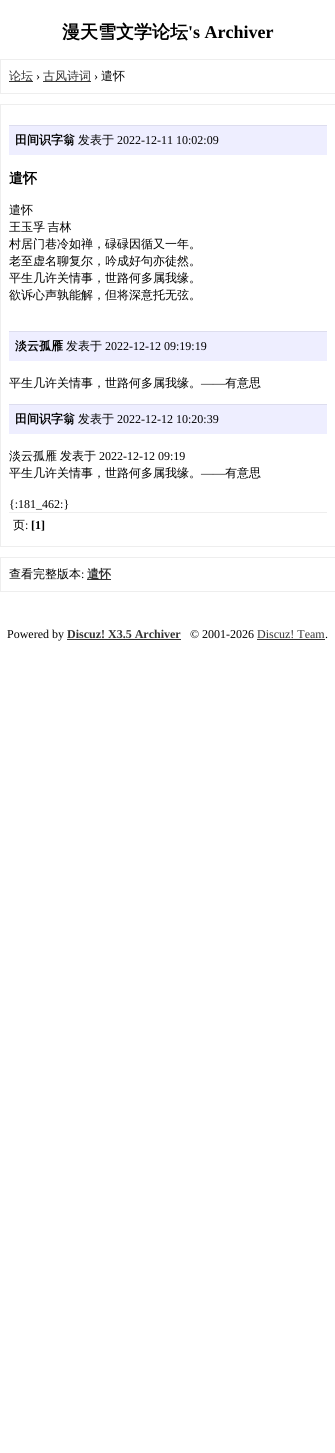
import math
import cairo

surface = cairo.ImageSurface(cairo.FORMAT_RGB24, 335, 1453)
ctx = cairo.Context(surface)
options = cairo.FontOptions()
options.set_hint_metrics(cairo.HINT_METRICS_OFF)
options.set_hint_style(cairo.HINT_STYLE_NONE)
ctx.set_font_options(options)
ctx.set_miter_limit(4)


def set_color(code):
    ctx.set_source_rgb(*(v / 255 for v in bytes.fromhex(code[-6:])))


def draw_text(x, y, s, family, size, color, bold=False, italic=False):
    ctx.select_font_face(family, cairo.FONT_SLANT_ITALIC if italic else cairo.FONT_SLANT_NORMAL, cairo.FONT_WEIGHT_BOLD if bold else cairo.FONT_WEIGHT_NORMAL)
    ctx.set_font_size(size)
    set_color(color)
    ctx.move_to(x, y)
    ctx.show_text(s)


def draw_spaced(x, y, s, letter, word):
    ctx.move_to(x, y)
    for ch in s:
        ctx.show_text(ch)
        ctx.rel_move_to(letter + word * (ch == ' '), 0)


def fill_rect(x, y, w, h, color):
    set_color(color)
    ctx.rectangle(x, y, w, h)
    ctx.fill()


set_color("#ffffff")
ctx.paint()
draw_text(62, 38, "漫天雪文学论坛", "WenQuanYi Zen Hei", 18, "#000000", bold=True)
draw_text(188, 38, "'s Archiver", "Liberation Serif", 18, "#000000", bold=True)
ctx.rectangle(0.5, 59.5, 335, 34)
set_color("#eeeeee")
ctx.set_line_width(1)
ctx.stroke()
fill_rect(9, 81, 24, 1, "#333333")
draw_text(9, 80, "论坛", "WenQuanYi Zen Hei Medium", 12, "#333333")
draw_text(36, 80, "›", "Liberation Serif", 12, "#000000")
fill_rect(43, 81, 48, 1, "#333333")
draw_text(43, 80, "古风诗词", "WenQuanYi Zen Hei Medium", 12, "#333333")
draw_text(94, 80, "›", "Liberation Serif", 12, "#000000")
draw_text(101, 80, "遣怀", "WenQuanYi Zen Hei Medium", 12, "#000000")
ctx.rectangle(0.5, 104.5, 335, 442)
set_color("#eeeeee")
ctx.stroke()
fill_rect(9, 126, 318, 29, "#eeeeff")
fill_rect(9, 125, 318, 1, "#ddddee")
draw_text(15, 144, "田间识字翁", "WenQuanYi Zen Hei", 12, "#000000", bold=True)
draw_text(78, 144, "发表于", "WenQuanYi Zen Hei Medium", 12, "#000000")
draw_text(117, 144, "2022-12-11 10:02:09", "Liberation Serif", 12, "#000000")
draw_text(9, 183, "遣怀", "WenQuanYi Zen Hei", 14, "#000000", bold=True)
draw_text(9, 214, "遣怀", "WenQuanYi Zen Hei Medium", 12, "#000000")
draw_spaced(9, 231, "王玉孚 吉林", 0, -1)
draw_text(9, 248, "村居门巷冷如禅，碌碌因循又一年。", "WenQuanYi Zen Hei Medium", 12, "#000000")
draw_text(9, 265, "老至虚名聊复尔，吟成好句亦徒然。", "WenQuanYi Zen Hei Medium", 12, "#000000")
draw_text(9, 282, "平生几许关情事，世路何多属我缘。", "WenQuanYi Zen Hei Medium", 12, "#000000")
draw_text(9, 299, "欲诉心声孰能解，但将深意托无弦。", "WenQuanYi Zen Hei Medium", 12, "#000000")
fill_rect(9, 332, 318, 29, "#eeeeff")
fill_rect(9, 331, 318, 1, "#ddddee")
draw_text(15, 350, "淡云孤雁", "WenQuanYi Zen Hei", 12, "#000000", bold=True)
draw_text(66, 350, "发表于", "WenQuanYi Zen Hei Medium", 12, "#000000")
draw_text(105, 350, "2022-12-12 09:19:19", "Liberation Serif", 12, "#000000")
draw_text(9, 387, "平生几许关情事，世路何多属我缘。", "WenQuanYi Zen Hei Medium", 12, "#000000")
draw_text(201, 387, "——", "Liberation Serif", 12, "#000000")
draw_text(225, 387, "有意思", "WenQuanYi Zen Hei Medium", 12, "#000000")
fill_rect(9, 405, 318, 29, "#eeeeff")
fill_rect(9, 404, 318, 1, "#ddddee")
draw_text(15, 423, "田间识字翁", "WenQuanYi Zen Hei", 12, "#000000", bold=True)
draw_text(78, 423, "发表于", "WenQuanYi Zen Hei Medium", 12, "#000000")
draw_text(117, 423, "2022-12-12 10:20:39", "Liberation Serif", 12, "#000000")
draw_text(9, 460, "淡云孤雁", "WenQuanYi Zen Hei Medium", 12, "#000000")
draw_text(60, 460, "发表于", "WenQuanYi Zen Hei Medium", 12, "#000000")
draw_text(99, 460, "2022-12-12 09:19", "Liberation Serif", 12, "#000000")
draw_text(9, 477, "平生几许关情事，世路何多属我缘。", "WenQuanYi Zen Hei Medium", 12, "#000000")
draw_text(201, 477, "——", "Liberation Serif", 12, "#000000")
draw_text(225, 477, "有意思", "WenQuanYi Zen Hei Medium", 12, "#000000")
draw_text(9, 508, "{:181_462:}", "Liberation Serif", 12, "#000000")
fill_rect(9, 512, 318, 1, "#eeeeee")
draw_text(13, 529, "页", "WenQuanYi Zen Hei Medium", 12, "#000000")
draw_text(25, 529, ":", "Liberation Serif", 12, "#000000")
draw_text(31, 529, "[1]", "Liberation Serif", 12, "#000000", bold=True)
ctx.rectangle(0.5, 557.5, 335, 34)
set_color("#eeeeee")
ctx.stroke()
draw_text(9, 578, "查看完整版本", "WenQuanYi Zen Hei Medium", 12, "#000000")
draw_text(81, 578, ":", "Liberation Serif", 12, "#000000")
fill_rect(87, 579, 24, 1, "#333333")
draw_text(87, 578, "遣怀", "WenQuanYi Zen Hei", 12, "#333333", bold=True)
draw_text(7, 638, "Powered by", "Liberation Serif", 12, "#000000")
draw_text(67, 638, "Discuz! X3.5 Archiver", "Liberation Serif", 12, "#333333", bold=True)
fill_rect(67, 639, 114, 1, "#333333")
draw_text(190, 638, "© 2001-2026", "Liberation Serif", 12, "#000000")
draw_text(257, 638, "Discuz! Team", "Liberation Serif", 12, "#333333")
fill_rect(257, 639, 68, 1, "#333333")
draw_text(325, 638, ".", "Liberation Serif", 12, "#000000")
surface.write_to_png("output.png")
